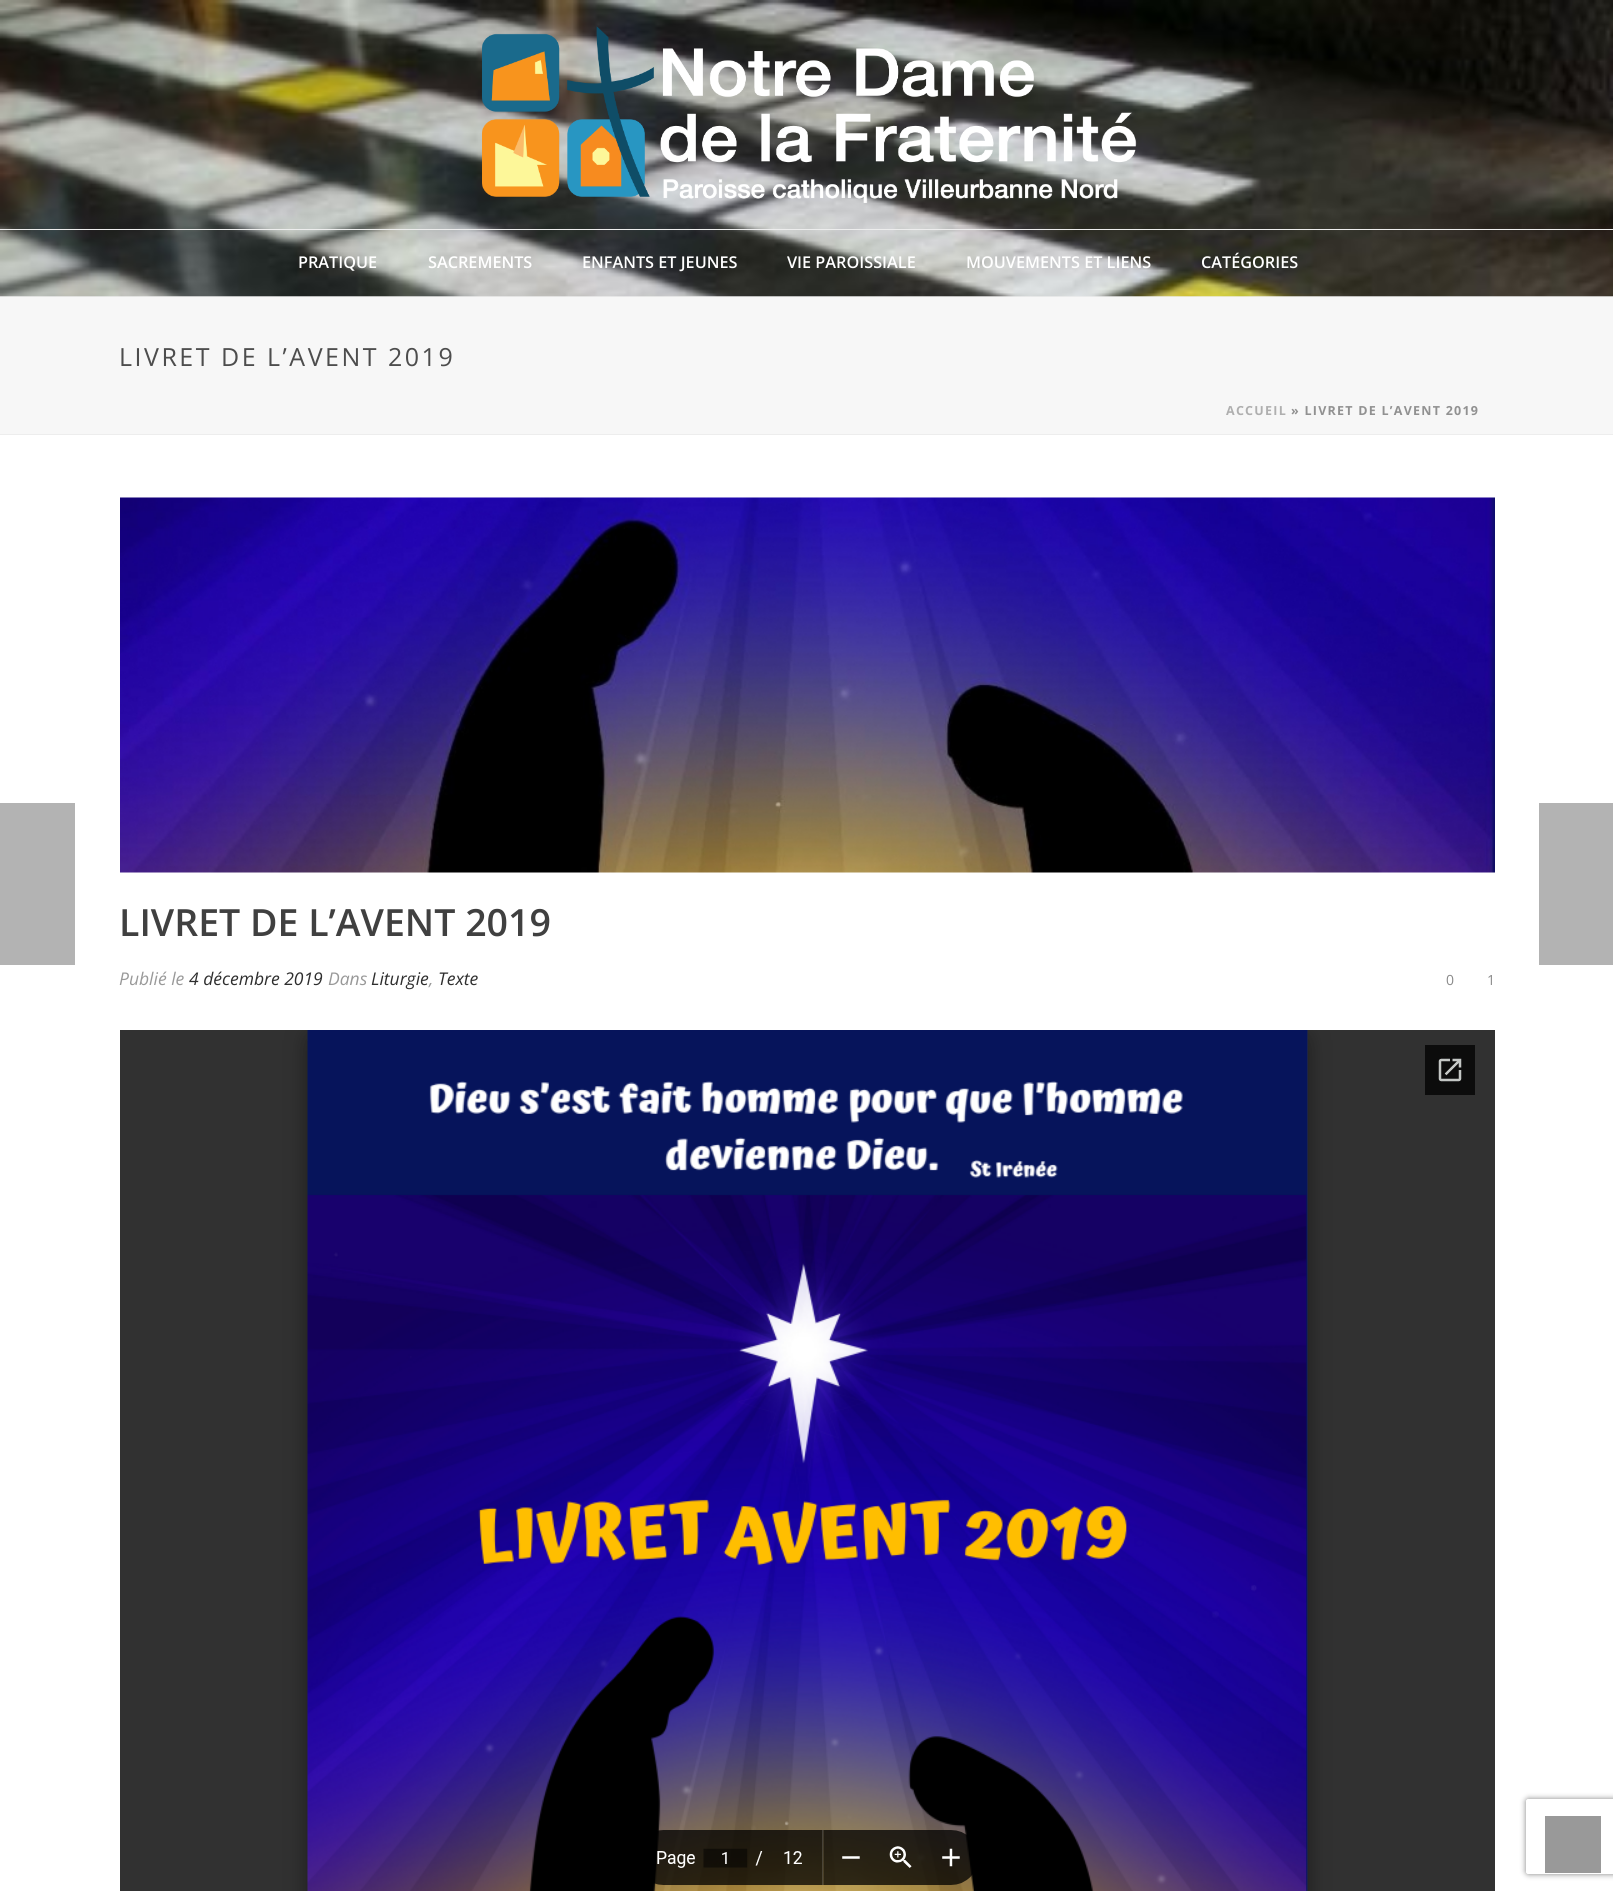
import math
import cairo

surface = cairo.ImageSurface(cairo.FORMAT_RGB24, 1613, 1891)
ctx = cairo.Context(surface)
options = cairo.FontOptions()
options.set_hint_metrics(cairo.HINT_METRICS_OFF)
options.set_hint_style(cairo.HINT_STYLE_NONE)
ctx.set_font_options(options)
ctx.set_miter_limit(4)


def set_color(code):
    ctx.set_source_rgb(*(v / 255 for v in bytes.fromhex(code[-6:])))


def draw_text(x, y, s, family, size, color, bold=False, italic=False):
    ctx.select_font_face(family, cairo.FONT_SLANT_ITALIC if italic else cairo.FONT_SLANT_NORMAL, cairo.FONT_WEIGHT_BOLD if bold else cairo.FONT_WEIGHT_NORMAL)
    ctx.set_font_size(size)
    set_color(color)
    ctx.move_to(x, y)
    ctx.show_text(s)


def draw_spaced(x, y, s, letter, word):
    ctx.move_to(x, y)
    for ch in s:
        ctx.show_text(ch)
        ctx.rel_move_to(letter + word * (ch == ' '), 0)


def fill_rect(x, y, w, h, color):
    set_color(color)
    ctx.rectangle(x, y, w, h)
    ctx.fill()


def rounded_rect(x, y, w, h, r):
    ctx.new_sub_path()
    for i, (u, v) in enumerate([(x + w - r, y + h - r), (x + r, y + h - r), (x + r, y + r), (x + w - r, y + r)]):
        ctx.arc(u, v, r, i * math.pi / 2, (i + 1) * math.pi / 2)
    ctx.close_path()


def draw_shadow(x, y, w, h, r, blur, alpha):
    ctx.push_group_with_content(cairo.CONTENT_ALPHA)
    ctx.set_operator(cairo.OPERATOR_SOURCE)
    for i in range(15, -16, -2):
        e = blur * i / 6
        if min(w, h) + 2 * e > 0:
            ctx.set_source_rgba(0, 0, 0, alpha * math.erfc((i - 1) / 8.5) / 2)
            rounded_rect(x - e, y - e, w + 2 * e, h + 2 * e, max(0, min(r + e + blur * .6, min(w, h) / 2 + e)))
            ctx.fill()
    ctx.mask(ctx.pop_group())


def draw_image(path, x, y, w, h):
    ctx.save()
    ctx.set_source_surface(cairo.ImageSurface.create_from_png(path), x, y)
    ctx.rectangle(x, y, w, h)
    ctx.fill()
    ctx.restore()


set_color("#ffffff")
ctx.paint()
fill_rect(0, 297, 1613, 137, "#f7f7f7")
fill_rect(0, 434, 1613, 1, "#ededed")
fill_rect(0, 296, 1613, 1, "#ededed")
draw_image("assets/img1.png", 0, 0, 1613, 297)
draw_image("assets/img2.png", 482, 26, 655, 177)
fill_rect(0, 229, 1613, 1, "#ededed")
draw_text(298, 268, "PRATIQUE", "Open Sans SemiBold", 16.25, "#ffffff")
draw_text(428, 268, "SACREMENTS", "Open Sans SemiBold", 16.25, "#ffffff")
draw_text(582, 268, "ENFANTS ET JEUNES", "Open Sans SemiBold", 16.25, "#ffffff")
draw_text(787, 268, "VIE PAROISSIALE", "Open Sans SemiBold", 16.25, "#ffffff")
draw_text(966, 268, "MOUVEMENTS ET LIENS", "Open Sans SemiBold", 16.25, "#ffffff")
draw_text(1201, 268, "CATÉGORIES", "Open Sans SemiBold", 16.25, "#ffffff")
ctx.select_font_face("Open Sans")
ctx.set_font_size(25)
set_color("#4d4d4d")
draw_spaced(119, 366, "LIVRET DE L’AVENT 2019", 2.5, 0)
ctx.select_font_face("Open Sans", cairo.FONT_SLANT_NORMAL, cairo.FONT_WEIGHT_BOLD)
ctx.set_font_size(12.5)
set_color("#afafaf")
draw_spaced(1226, 415, "ACCUEIL", 1.25, 0)
set_color("#919191")
draw_spaced(1291, 415, "» LIVRET DE L’AVENT 2019", 1.25, 0)
draw_image("assets/img3.png", 120, 497, 1375, 376)
draw_text(119, 936, "LIVRET DE L’AVENT 2019", "Open Sans SemiBold", 37.5, "#404040")
draw_text(119, 985, "Publié le", "Open Sans", 17.5, "#999999", italic=True)
draw_text(189, 985, "4 décembre 2019", "Open Sans", 17.5, "#2e2e2e", italic=True)
draw_text(328, 985, "Dans", "Open Sans", 17.5, "#999999", italic=True)
draw_text(371, 985, "Liturgie", "Open Sans", 17.5, "#2e2e2e", italic=True)
draw_text(429, 985, ",", "Open Sans", 17.5, "#999999", italic=True)
draw_text(438, 985, "Texte", "Open Sans", 17.5, "#2e2e2e", italic=True)
draw_text(1446, 985, "0", "Open Sans", 14, "#898989")
draw_text(1487, 985, "1", "Open Sans", 14, "#898989")
draw_image("assets/img4.png", 120, 1030, 1375, 861)
fill_rect(0, 803, 75, 162, "#b3b3b3")
fill_rect(1539, 803, 74, 162, "#b3b3b3")
ctx.save()
ctx.set_fill_rule(cairo.FILL_RULE_EVEN_ODD)
ctx.new_path()
ctx.move_to(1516, 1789)
ctx.line_to(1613, 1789)
ctx.line_to(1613, 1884)
ctx.line_to(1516, 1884)
ctx.close_path()
ctx.move_to(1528.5, 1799)
ctx.line_to(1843.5, 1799)
ctx.curve_to(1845, 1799, 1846, 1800, 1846, 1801.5)
ctx.line_to(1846, 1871.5)
ctx.curve_to(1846, 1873, 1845, 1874, 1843.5, 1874)
ctx.line_to(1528.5, 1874)
ctx.curve_to(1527, 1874, 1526, 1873, 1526, 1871.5)
ctx.line_to(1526, 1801.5)
ctx.curve_to(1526, 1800, 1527, 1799, 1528.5, 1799)
ctx.close_path()
ctx.clip()
set_color("#808080")
draw_shadow(1526, 1799, 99, 75, 2.5, 3, 1)
ctx.restore()
fill_rect(1545, 1816, 56, 57, "#999999")
surface.write_to_png("output.png")
